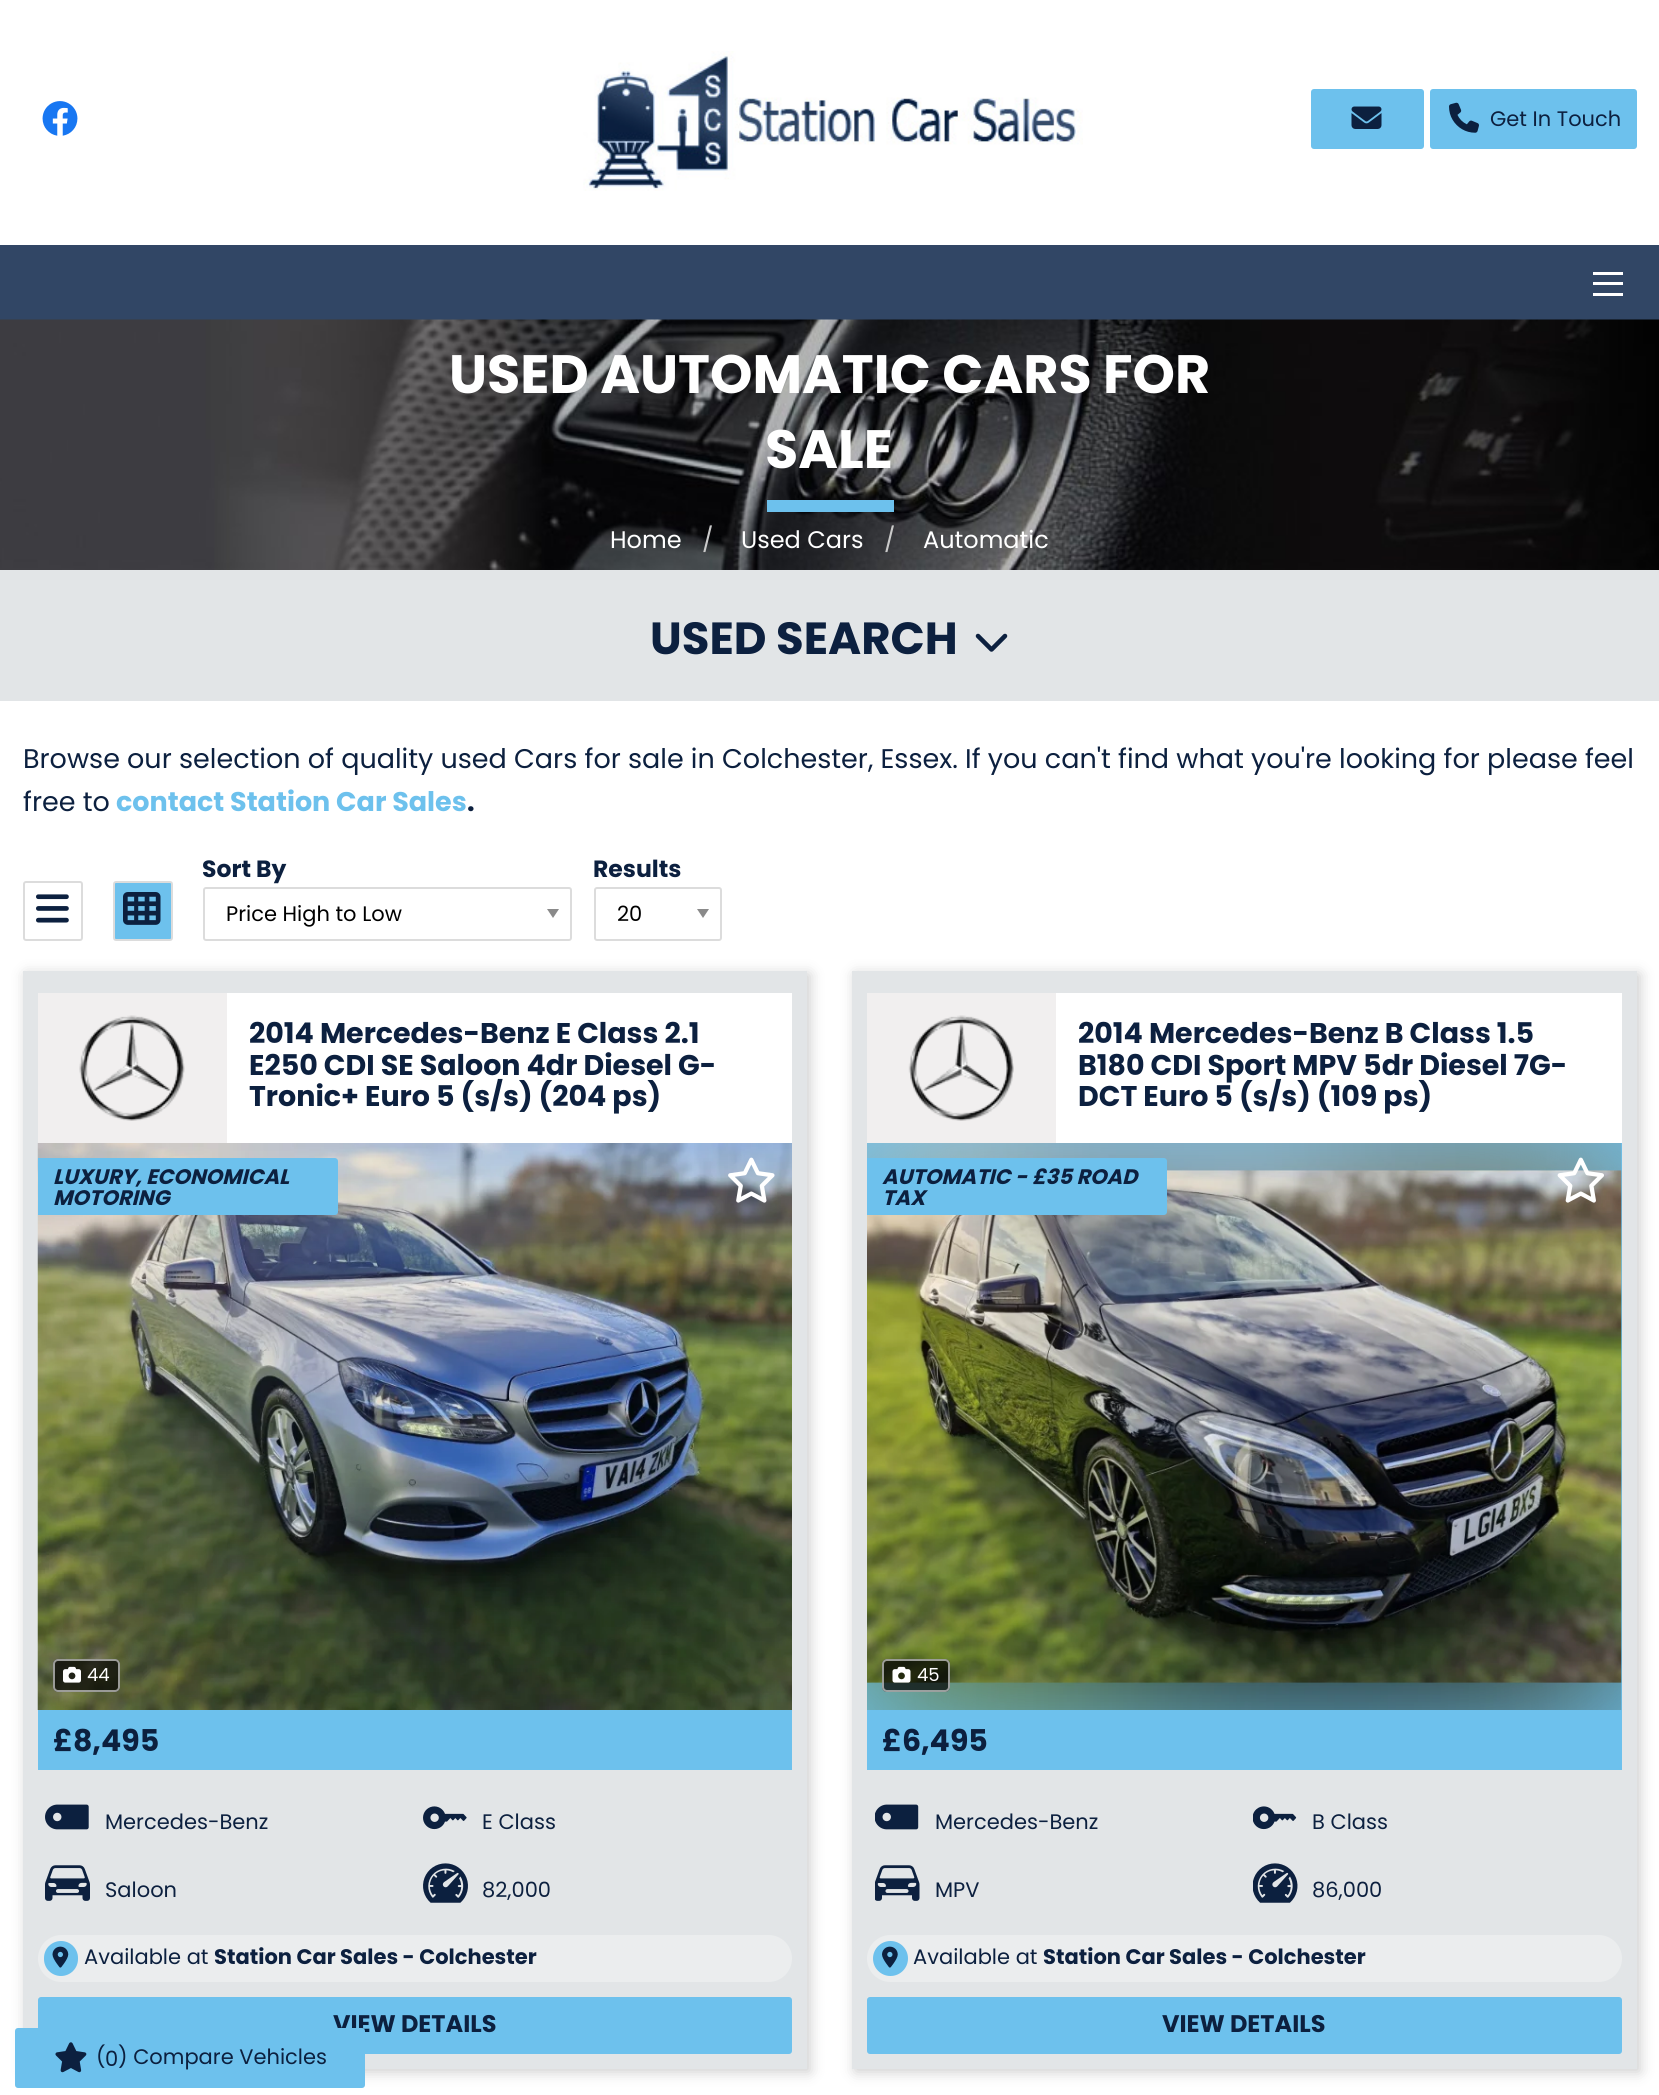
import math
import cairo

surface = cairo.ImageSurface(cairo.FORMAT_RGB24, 1659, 2095)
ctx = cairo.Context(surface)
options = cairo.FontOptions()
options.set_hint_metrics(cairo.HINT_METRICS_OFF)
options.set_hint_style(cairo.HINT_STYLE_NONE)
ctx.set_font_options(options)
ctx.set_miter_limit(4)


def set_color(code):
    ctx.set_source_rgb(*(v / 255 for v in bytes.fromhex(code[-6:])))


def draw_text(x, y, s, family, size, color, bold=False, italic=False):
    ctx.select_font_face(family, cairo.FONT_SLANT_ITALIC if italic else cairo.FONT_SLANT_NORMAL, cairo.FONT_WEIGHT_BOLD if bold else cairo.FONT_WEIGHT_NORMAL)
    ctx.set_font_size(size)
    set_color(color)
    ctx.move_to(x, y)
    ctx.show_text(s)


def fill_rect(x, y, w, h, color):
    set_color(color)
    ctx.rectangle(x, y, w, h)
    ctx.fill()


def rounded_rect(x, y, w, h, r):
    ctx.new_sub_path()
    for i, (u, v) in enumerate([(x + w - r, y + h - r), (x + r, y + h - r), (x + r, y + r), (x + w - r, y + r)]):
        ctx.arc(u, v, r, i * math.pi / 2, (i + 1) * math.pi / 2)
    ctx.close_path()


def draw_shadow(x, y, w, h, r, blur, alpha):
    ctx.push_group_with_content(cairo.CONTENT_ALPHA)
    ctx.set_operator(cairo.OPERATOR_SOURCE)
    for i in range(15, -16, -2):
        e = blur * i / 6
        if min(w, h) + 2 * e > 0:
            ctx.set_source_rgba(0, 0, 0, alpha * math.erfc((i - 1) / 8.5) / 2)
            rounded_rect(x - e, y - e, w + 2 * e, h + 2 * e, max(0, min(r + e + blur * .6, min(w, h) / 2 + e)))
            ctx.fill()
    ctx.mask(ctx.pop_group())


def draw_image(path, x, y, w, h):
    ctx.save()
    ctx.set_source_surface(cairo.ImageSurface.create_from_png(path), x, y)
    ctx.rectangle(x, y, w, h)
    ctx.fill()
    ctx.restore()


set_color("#ffffff")
ctx.paint()
draw_image("assets/img1.png", 583, 51, 500, 140)
set_color("#6dc1ed")
rounded_rect(1311, 89, 113, 60, 3)
ctx.fill()
draw_image("assets/img2.png", 1351, 106, 31, 23)
rounded_rect(1430, 89, 207, 60, 3)
ctx.fill()
draw_image("assets/img3.png", 1449, 102, 30, 31)
draw_text(1490, 126, "Get In Touch", "Poppins", 21, "#0c203f")
draw_image("assets/img4.png", 42, 101, 36, 35)
set_color("#000000")
draw_shadow(26, 974, 784, 1098, 0, 7, 0.2)
fill_rect(23, 971, 784, 1098, "#e2e5e7")
set_color("#6dc1ed")
rounded_rect(38, 1997, 754, 57, 3)
ctx.fill()
draw_text(333, 2032, "VIEW DETAILS", "Poppins", 24, "#0c203f", bold=True)
set_color("#6dc1ed")
rounded_rect(15, 2028, 350, 60, 3)
ctx.fill()
draw_image("assets/img5.png", 55, 2042, 32, 31)
draw_text(96, 2064, "(", "Poppins", 21, "#0c203f")
draw_text(105, 2066, "0", "Poppins", 21, "#0c203f")
draw_text(118, 2064, ") Compare Vehicles", "Poppins", 21, "#0c203f")
fill_rect(0, 245, 1659, 75, "#314665")
fill_rect(1593, 293, 30, 3, "#ffffff")
fill_rect(1593, 282, 30, 3, "#ffffff")
fill_rect(1593, 272, 30, 3, "#ffffff")
draw_image("assets/img6.png", 0, 319, 1659, 251)
draw_text(449, 393, "USED AUTOMATIC CARS FOR", "Poppins", 54, "#ffffff", bold=True)
draw_text(765, 468, "SALE", "Poppins", 54, "#ffffff", bold=True)
fill_rect(767, 500, 127, 12, "#6dc1ed")
draw_text(610, 548, "Home", "Poppins", 24, "#ffffff")
draw_text(702, 548, "/", "Poppins", 24, "#cacaca")
draw_text(741, 548, "Used Cars", "Poppins", 24, "#ffffff")
draw_text(884, 548, "/", "Poppins", 24, "#cacaca")
draw_text(923, 548, "Automatic", "Poppins", 24, "#ffffff")
fill_rect(0, 570, 1659, 131, "#e2e5e7")
draw_text(650, 654, "USED SEARCH", "Poppins", 45, "#0c203f", bold=True)
draw_image("assets/img7.png", 975, 633, 33, 19)
draw_text(23, 768, "Browse our selection of quality used Cars for sale in Colchester, Essex. If you can't find what you're looking for please feel", "Poppins", 27, "#0c203f")
draw_text(23, 811, "free to", "Poppins", 27, "#0c203f")
draw_text(116, 811, "contact Station Car Sales", "Poppins", 27, "#6dc1ed", bold=True)
draw_text(467, 811, ".", "Poppins", 27, "#0c203f", bold=True)
rounded_rect(24, 882, 58, 58, 2)
set_color("#dcdcdc")
ctx.stroke()
draw_image("assets/img8.png", 36, 894, 33, 29)
set_color("#6dc1ed")
rounded_rect(114, 882, 58, 58, 2)
ctx.fill_preserve()
set_color("#dcdcdc")
ctx.stroke()
draw_image("assets/img9.png", 123, 892, 38, 33)
draw_text(202, 877, "Sort By", "Poppins", 23.5, "#0c203f", bold=True)
set_color("#8a8a8a")
ctx.new_path()
ctx.move_to(547, 909)
ctx.line_to(559, 909)
ctx.line_to(553, 918)
ctx.close_path()
ctx.fill()
rounded_rect(204, 888, 367, 52, 2)
set_color("#dcdcdc")
ctx.stroke()
draw_text(226, 921, "Price High to Low", "Poppins", 21, "#000000")
draw_text(593, 877, "Results", "Poppins", 23.5, "#0c203f", bold=True)
set_color("#8a8a8a")
ctx.new_path()
ctx.move_to(697, 909)
ctx.line_to(709, 909)
ctx.line_to(703, 918)
ctx.close_path()
ctx.fill()
rounded_rect(595, 888, 126, 52, 2)
set_color("#dcdcdc")
ctx.stroke()
draw_text(617, 921, "20", "Poppins", 21, "#000000")
fill_rect(227, 993, 565, 150, "#ffffff")
fill_rect(38, 993, 189, 150, "#f1efef")
draw_image("assets/img10.png", 79, 1015, 106, 106)
draw_text(249, 1043, "2014 Mercedes-Benz E Class 2.1", "Poppins", 28.5, "#0c203f", bold=True)
draw_text(249, 1075, "E250 CDI SE Saloon 4dr Diesel G-", "Poppins", 28.5, "#0c203f", bold=True)
draw_text(249, 1106, "Tronic+ Euro 5 (s/s) (204 ps)", "Poppins", 28.5, "#0c203f", bold=True)
draw_image("assets/img11.png", 37, 1143, 755, 567)
set_color("#6dc1ed")
ctx.new_path()
ctx.move_to(38, 1158)
ctx.line_to(335, 1158)
ctx.curve_to(336.5, 1158, 338, 1159.5, 338, 1161)
ctx.line_to(338, 1212)
ctx.curve_to(338, 1213.5, 336.5, 1215, 335, 1215)
ctx.line_to(38, 1215)
ctx.close_path()
ctx.fill()
draw_text(53, 1184, "LUXURY, ECONOMICAL", "Poppins", 21, "#0c203f", bold=True, italic=True)
draw_text(53, 1205, "MOTORING", "Poppins", 21, "#0c203f", bold=True, italic=True)
ctx.set_source_rgba(0, 0, 0, 0.7)
rounded_rect(53, 1659, 67, 33, 5)
ctx.fill()
rounded_rect(54, 1660, 65, 31, 4)
ctx.set_source_rgba(0.82, 0.82, 0.82, 0.7)
ctx.stroke()
draw_image("assets/img12.png", 63, 1666, 18, 17)
draw_text(87, 1681, "44", "Poppins", 18, "#ffffff")
draw_image("assets/img13.png", 728, 1157, 47, 46)
fill_rect(38, 1710, 754, 60, "#6dc1ed")
draw_text(53, 1751, "£8,495", "Poppins", 30, "#0c203f", bold=True)
draw_image("assets/img14.png", 45, 1804, 44, 26)
draw_text(105, 1829, "Mercedes-Benz", "Poppins", 21, "#0c203f")
draw_image("assets/img15.png", 423, 1806, 44, 24)
draw_text(482, 1829, "E Class", "Poppins", 21, "#0c203f")
draw_image("assets/img16.png", 45, 1865, 45, 36)
draw_text(105, 1897, "Saloon", "Poppins", 21, "#0c203f")
draw_image("assets/img17.png", 423, 1863, 45, 40)
draw_text(482, 1897, "82,000", "Poppins", 21, "#0c203f")
set_color("#ebedee")
rounded_rect(38, 1935, 754, 47, 23.5)
ctx.fill()
set_color("#6dc1ed")
rounded_rect(44, 1941, 34, 35, 17)
ctx.fill()
draw_image("assets/img18.png", 52, 1946, 17, 22)
draw_text(84, 1964, "Available at", "Poppins", 21, "#0c203f")
draw_text(214, 1964, "Station Car Sales - Colchester", "Poppins", 21, "#0c203f", bold=True)
set_color("#000000")
draw_shadow(855, 974, 785, 1098, 0, 7, 0.2)
fill_rect(852, 971, 785, 1098, "#e2e5e7")
fill_rect(1056, 993, 566, 150, "#ffffff")
fill_rect(867, 993, 189, 150, "#f1efef")
draw_image("assets/img19.png", 908, 1015, 106, 106)
draw_text(1078, 1043, "2014 Mercedes-Benz B Class 1.5", "Poppins", 28.5, "#0c203f", bold=True)
draw_text(1078, 1075, "B180 CDI Sport MPV 5dr Diesel 7G-", "Poppins", 28.5, "#0c203f", bold=True)
draw_text(1078, 1106, "DCT Euro 5 (s/s) (109 ps)", "Poppins", 28.5, "#0c203f", bold=True)
fill_rect(867, 1143, 755, 627, "#6dc1ed")
draw_image("assets/img20.png", 867, 1143, 755, 567)
ctx.new_path()
ctx.move_to(867, 1158)
ctx.line_to(1164, 1158)
ctx.curve_to(1165.5, 1158, 1167, 1159.5, 1167, 1161)
ctx.line_to(1167, 1212)
ctx.curve_to(1167, 1213.5, 1165.5, 1215, 1164, 1215)
ctx.line_to(867, 1215)
ctx.close_path()
ctx.fill()
draw_text(882, 1184, "AUTOMATIC - £35 ROAD", "Poppins", 21, "#0c203f", bold=True, italic=True)
draw_text(882, 1205, "TAX", "Poppins", 21, "#0c203f", bold=True, italic=True)
ctx.set_source_rgba(0, 0, 0, 0.7)
rounded_rect(882, 1659, 68, 33, 5)
ctx.fill()
rounded_rect(883, 1660, 66, 31, 4)
ctx.set_source_rgba(0.82, 0.82, 0.82, 0.7)
ctx.stroke()
draw_image("assets/img21.png", 892, 1666, 19, 17)
draw_text(917, 1681, "45", "Poppins", 18, "#ffffff")
draw_image("assets/img22.png", 1557, 1157, 47, 46)
draw_text(882, 1751, "£6,495", "Poppins", 30, "#0c203f", bold=True)
draw_image("assets/img23.png", 875, 1804, 44, 26)
draw_text(935, 1829, "Mercedes-Benz", "Poppins", 21, "#0c203f")
draw_image("assets/img24.png", 1253, 1806, 44, 24)
draw_text(1312, 1829, "B Class", "Poppins", 21, "#0c203f")
draw_image("assets/img25.png", 875, 1865, 45, 36)
draw_text(935, 1897, "MPV", "Poppins", 21, "#0c203f")
draw_image("assets/img26.png", 1253, 1863, 45, 40)
draw_text(1312, 1897, "86,000", "Poppins", 21, "#0c203f")
set_color("#ebedee")
rounded_rect(867, 1935, 755, 47, 23.5)
ctx.fill()
set_color("#6dc1ed")
ctx.arc(890.5, 1958.5, 17.5, 0, 2 * math.pi)
ctx.fill()
draw_image("assets/img27.png", 882, 1946, 16, 22)
draw_text(913, 1964, "Available at", "Poppins", 21, "#0c203f")
draw_text(1043, 1964, "Station Car Sales - Colchester", "Poppins", 21, "#0c203f", bold=True)
set_color("#6dc1ed")
rounded_rect(867, 1997, 755, 57, 3)
ctx.fill()
draw_text(1162, 2032, "VIEW DETAILS", "Poppins", 24, "#0c203f", bold=True)
surface.write_to_png("output.png")
